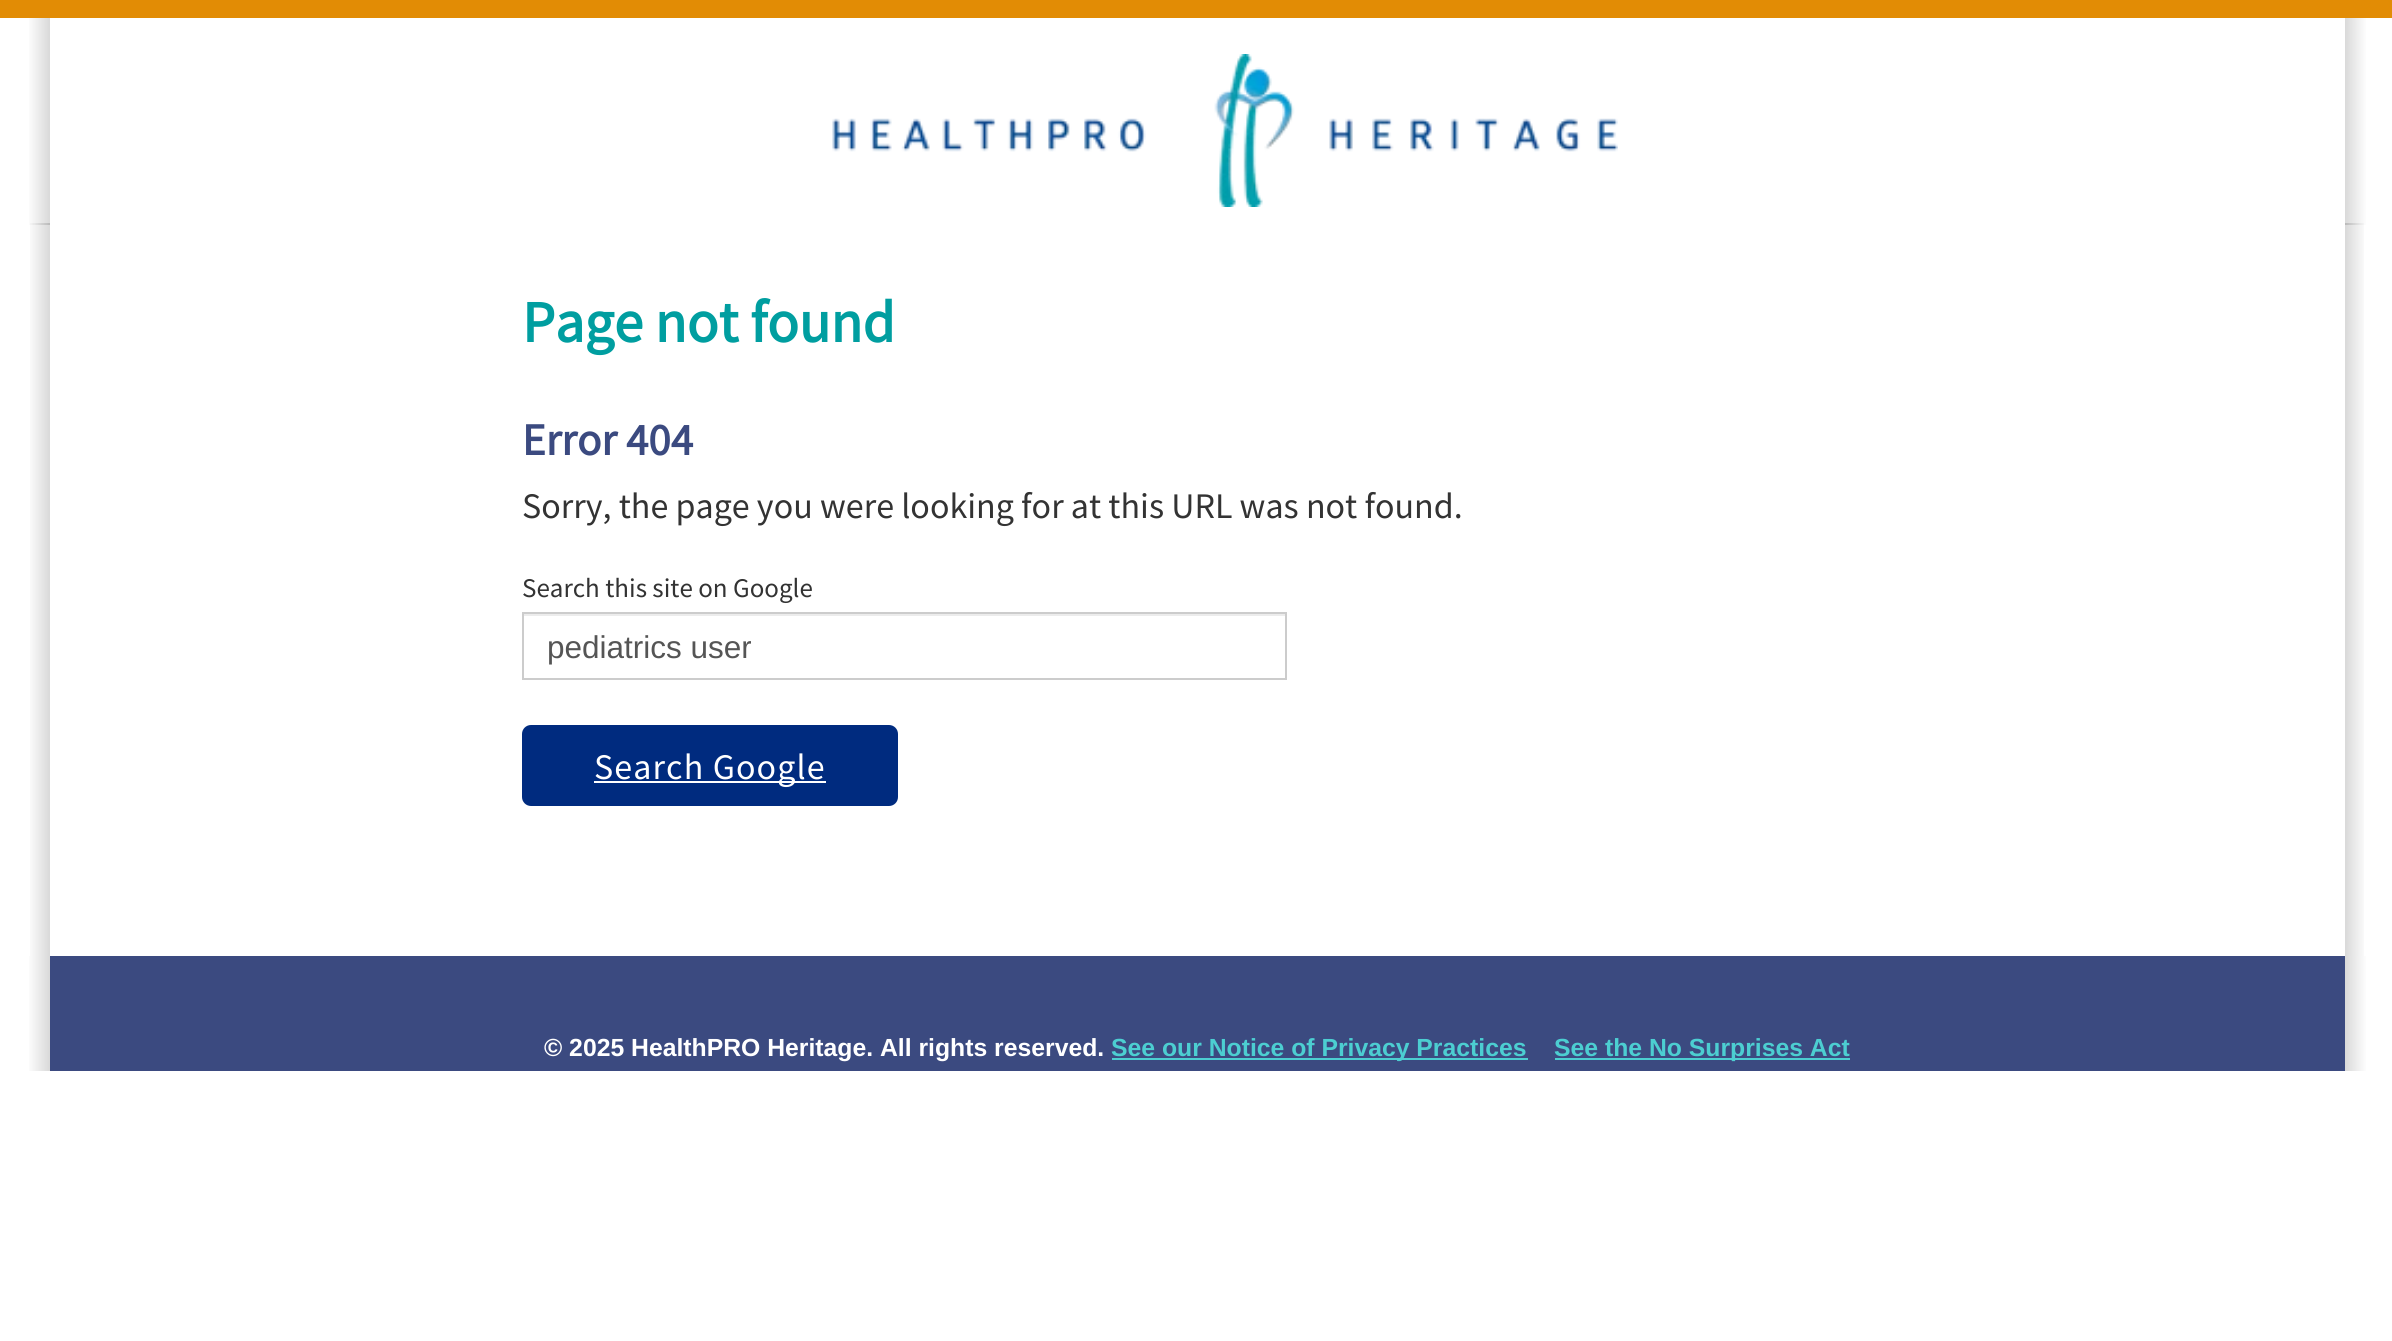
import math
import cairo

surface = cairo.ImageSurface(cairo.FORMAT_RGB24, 2392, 1341)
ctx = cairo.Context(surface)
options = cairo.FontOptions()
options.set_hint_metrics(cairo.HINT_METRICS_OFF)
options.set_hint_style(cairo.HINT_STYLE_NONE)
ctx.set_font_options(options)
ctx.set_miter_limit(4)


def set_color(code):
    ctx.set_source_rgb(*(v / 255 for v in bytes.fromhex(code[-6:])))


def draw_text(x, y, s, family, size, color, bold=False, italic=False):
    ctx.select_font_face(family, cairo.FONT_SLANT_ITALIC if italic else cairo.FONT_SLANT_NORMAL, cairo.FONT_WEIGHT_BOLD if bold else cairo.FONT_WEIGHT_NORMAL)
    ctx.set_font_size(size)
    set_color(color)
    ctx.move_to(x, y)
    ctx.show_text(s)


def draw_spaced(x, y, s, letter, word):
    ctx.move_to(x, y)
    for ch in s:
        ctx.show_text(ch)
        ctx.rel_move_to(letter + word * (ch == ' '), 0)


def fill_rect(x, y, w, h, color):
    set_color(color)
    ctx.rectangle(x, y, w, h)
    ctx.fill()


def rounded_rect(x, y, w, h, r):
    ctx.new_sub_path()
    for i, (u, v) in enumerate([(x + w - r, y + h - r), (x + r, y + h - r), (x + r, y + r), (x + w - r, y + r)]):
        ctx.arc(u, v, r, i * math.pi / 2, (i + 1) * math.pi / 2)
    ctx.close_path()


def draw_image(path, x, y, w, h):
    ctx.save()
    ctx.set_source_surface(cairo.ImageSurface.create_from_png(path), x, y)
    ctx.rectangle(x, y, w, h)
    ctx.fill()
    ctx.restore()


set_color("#ffffff")
ctx.paint()
fill_rect(0, 0, 2392, 18, "#e28c05")
gradient = cairo.LinearGradient(27, 122, 50, 122)
gradient.add_color_stop_rgba(0, 1, 1, 1, 1)
gradient.add_color_stop_rgba(1, 0.851, 0.851, 0.851, 1)
ctx.set_source(gradient)
ctx.rectangle(29, 18, 21, 207)
ctx.fill()
draw_image("assets/img1.png", 832, 54, 786, 153)
gradient = cairo.LinearGradient(2345, 122, 2367, 122)
gradient.add_color_stop_rgba(0, 0.851, 0.851, 0.851, 1)
gradient.add_color_stop_rgba(1, 1, 1, 1, 1)
ctx.set_source(gradient)
ctx.rectangle(2345, 18, 21, 207)
ctx.fill()
gradient = cairo.LinearGradient(27, 590, 50, 590)
gradient.add_color_stop_rgba(0, 0, 0, 0, 0)
gradient.add_color_stop_rgba(1, 0, 0, 0, 0.15)
ctx.set_source(gradient)
ctx.rectangle(30, 223, 20, 733)
ctx.fill()
draw_text(522, 342, "Page not found", "Source Sans Pro", 58.5, "#009ea0", bold=True)
draw_text(522, 455, "Error 404", "Source Sans Pro", 45, "#3b4a80", bold=True)
draw_text(522, 518, "Sorry, the page you were looking for at this URL was not found.", "Source Sans Pro", 36, "#333333")
draw_text(522, 597, "Search this site on Google", "Source Sans Pro", 27, "#333333")
fill_rect(524, 614, 761, 2, "#ececec")
ctx.rectangle(523, 613, 763, 66)
set_color("#cccccc")
ctx.stroke()
draw_text(547, 658, "pediatrics user", "Liberation Sans", 31.5, "#555555")
set_color("#002b7f")
rounded_rect(522, 725, 376, 81, 9)
ctx.fill()
fill_rect(594, 781, 232, 2, "#ffffff")
ctx.select_font_face("Source Sans Pro")
ctx.set_font_size(36)
draw_spaced(594, 779, "Search Google", 1.1, 0)
gradient = cairo.LinearGradient(2345, 590, 2367, 590)
gradient.add_color_stop_rgba(0, 0, 0, 0, 0.15)
gradient.add_color_stop_rgba(1, 0, 0, 0, 0)
ctx.set_source(gradient)
ctx.rectangle(2345, 223, 19, 733)
ctx.fill()
fill_rect(50, 956, 2295, 115, "#3b4a80")
gradient = cairo.LinearGradient(27, 1014, 50, 1014)
gradient.add_color_stop_rgba(0, 1, 1, 1, 1)
gradient.add_color_stop_rgba(1, 0.851, 0.851, 0.851, 1)
ctx.set_source(gradient)
ctx.rectangle(29, 956, 21, 115)
ctx.fill()
draw_text(544, 1056, "© 2025 HealthPRO Heritage. All rights reserved.", "Liberation Sans", 24.75, "#ffffff", bold=True)
fill_rect(1112, 1058, 416, 2, "#4cced1")
draw_text(1111, 1056, "See our Notice of Privacy Practices", "Liberation Sans", 24.75, "#4cced1", bold=True)
fill_rect(1555, 1058, 295, 2, "#4cced1")
draw_text(1554, 1056, "See the No Surprises Act", "Liberation Sans", 24.75, "#4cced1", bold=True)
gradient = cairo.LinearGradient(2345, 1014, 2367, 1014)
gradient.add_color_stop_rgba(0, 0.851, 0.851, 0.851, 1)
gradient.add_color_stop_rgba(1, 1, 1, 1, 1)
ctx.set_source(gradient)
ctx.rectangle(2345, 956, 21, 115)
ctx.fill()
surface.write_to_png("output.png")
